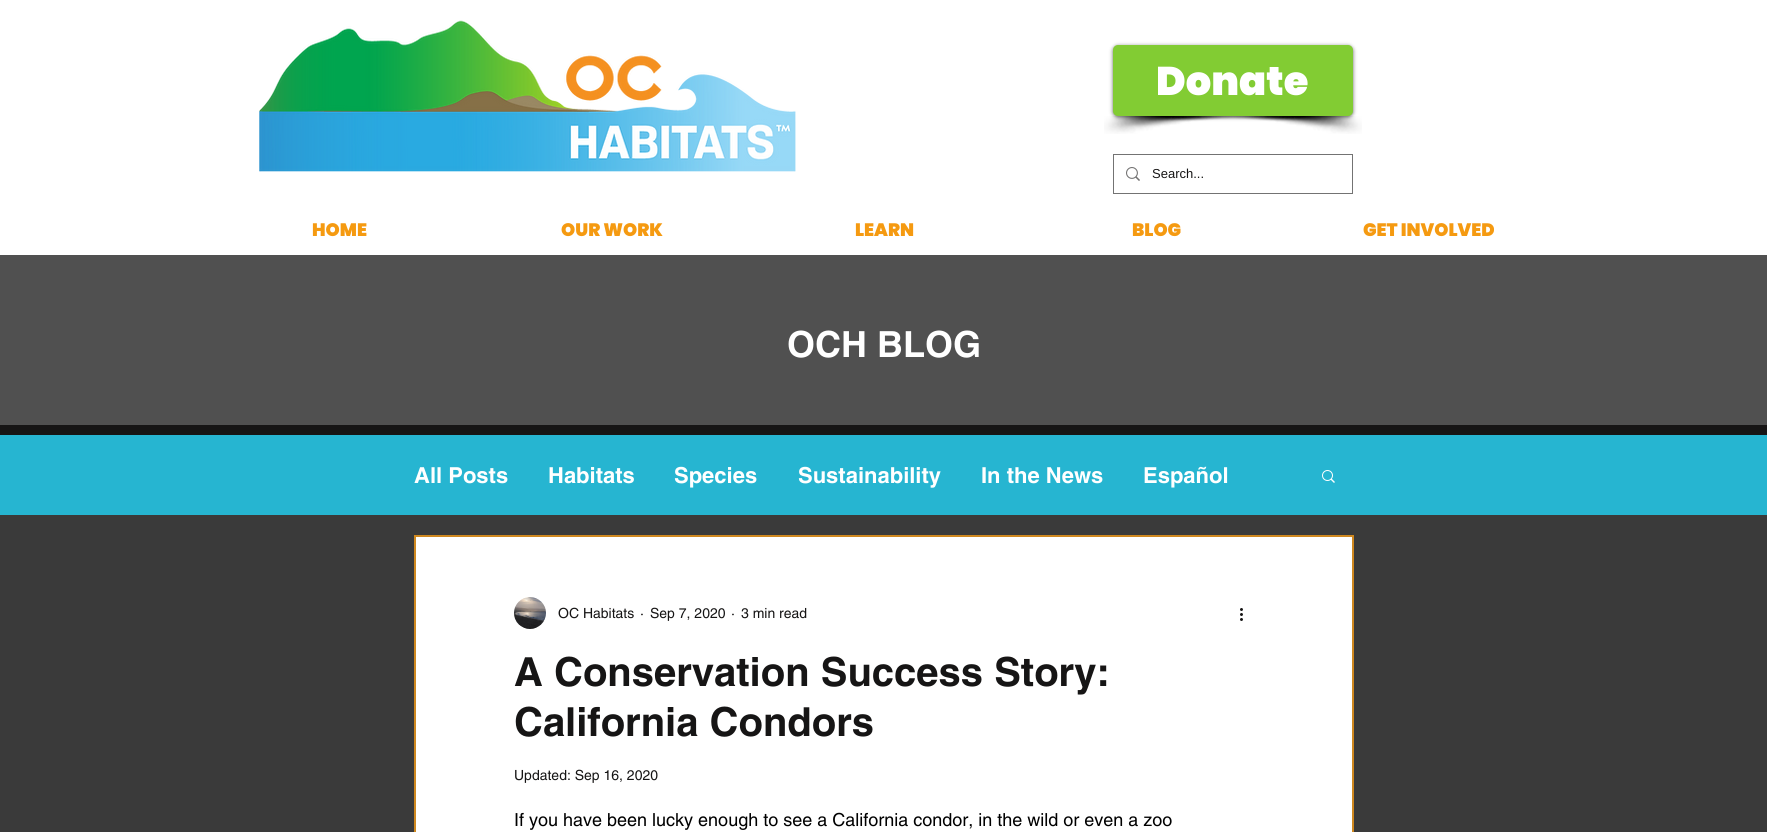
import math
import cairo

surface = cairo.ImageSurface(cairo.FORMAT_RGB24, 1767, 832)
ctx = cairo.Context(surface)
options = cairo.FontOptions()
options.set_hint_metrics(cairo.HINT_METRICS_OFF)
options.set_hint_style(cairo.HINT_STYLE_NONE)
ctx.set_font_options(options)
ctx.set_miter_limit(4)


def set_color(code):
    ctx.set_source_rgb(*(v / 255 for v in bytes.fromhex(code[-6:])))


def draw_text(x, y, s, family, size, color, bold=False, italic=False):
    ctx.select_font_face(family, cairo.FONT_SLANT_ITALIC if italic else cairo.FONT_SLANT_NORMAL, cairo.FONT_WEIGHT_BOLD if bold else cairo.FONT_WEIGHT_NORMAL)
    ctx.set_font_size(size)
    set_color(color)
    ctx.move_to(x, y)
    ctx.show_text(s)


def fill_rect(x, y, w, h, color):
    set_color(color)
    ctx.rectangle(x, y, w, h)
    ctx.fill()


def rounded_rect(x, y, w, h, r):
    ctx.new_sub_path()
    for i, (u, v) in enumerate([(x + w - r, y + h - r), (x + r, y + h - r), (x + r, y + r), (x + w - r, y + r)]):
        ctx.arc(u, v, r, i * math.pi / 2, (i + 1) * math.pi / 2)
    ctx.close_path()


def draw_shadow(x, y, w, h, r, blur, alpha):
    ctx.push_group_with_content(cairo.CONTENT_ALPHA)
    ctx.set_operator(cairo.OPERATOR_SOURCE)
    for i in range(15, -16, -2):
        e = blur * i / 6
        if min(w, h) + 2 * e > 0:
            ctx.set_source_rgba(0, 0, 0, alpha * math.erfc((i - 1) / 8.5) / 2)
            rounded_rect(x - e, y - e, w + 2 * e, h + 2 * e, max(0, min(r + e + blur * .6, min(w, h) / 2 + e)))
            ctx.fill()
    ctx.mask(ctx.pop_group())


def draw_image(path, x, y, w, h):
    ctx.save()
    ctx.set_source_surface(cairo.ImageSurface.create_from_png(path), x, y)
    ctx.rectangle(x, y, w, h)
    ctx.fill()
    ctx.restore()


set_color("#161515")
ctx.paint()
fill_rect(0, 0, 1767, 255, "#ffffff")
draw_image("assets/img1.png", 259, 20, 537, 152)
draw_image("assets/img2.png", 1104, 116, 154, 18)
draw_image("assets/img3.png", 1215, 116, 147, 18)
set_color("#000000")
draw_shadow(1113, 46, 240, 71, 5, 2, 0.6)
set_color("#82cc33")
rounded_rect(1113, 45, 240, 71, 5)
ctx.fill()
draw_text(1156, 95, "Donate", "Poppins Black", 40, "#ffffff")
ctx.rectangle(1113.5, 154.5, 239, 39)
set_color("#737373")
ctx.set_line_width(1)
ctx.stroke()
draw_image("assets/img4.png", 1126, 167, 14, 14)
draw_text(1152, 178, "Search...", "Liberation Sans", 13, "#161515")
draw_text(312, 236, "HOME", "Poppins Black", 18, "#f59a11")
draw_text(561, 236, "OUR WORK", "Poppins Black", 18, "#f59a11")
draw_text(855, 236, "LEARN", "Poppins Black", 18, "#f59a11")
draw_text(1132, 236, "BLOG", "Poppins Black", 18, "#f59a11")
draw_text(1363, 236, "GET INVOLVED", "Poppins Black", 18, "#f59a11")
fill_rect(0, 255, 1767, 170, "#505050")
draw_text(787, 357, "OCH BLOG", "helvetica", 36, "#ffffff", bold=True)
fill_rect(0, 515, 1767, 317, "#3a3a3a")
fill_rect(0, 435, 1767, 80, "#26b5d1")
draw_text(414, 483, "All Posts", "helvetica", 22, "#ffffff", bold=True)
draw_text(548, 483, "Habitats", "helvetica", 22, "#ffffff", bold=True)
draw_text(674, 483, "Species", "helvetica", 22, "#ffffff", bold=True)
draw_text(798, 483, "Sustainability", "helvetica", 22, "#ffffff", bold=True)
draw_text(981, 483, "In the News", "helvetica", 22, "#ffffff", bold=True)
draw_text(1143, 483, "Español", "helvetica", 22, "#ffffff", bold=True)
draw_image("assets/img5.png", 1322, 470, 13, 13)
ctx.rectangle(415, 536, 938, 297)
ctx.fill_preserve()
set_color("#cf881f")
ctx.set_line_width(2)
ctx.stroke()
draw_image("assets/img6.png", 514, 597, 32, 32)
draw_text(558, 618, "OC Habitats", "helvetica", 14, "#161515")
draw_text(640, 618, "·", "helvetica", 14, "#161515")
draw_text(650, 618, "Sep 7, 2020", "helvetica", 14, "#161515")
draw_text(731, 618, "·", "helvetica", 14, "#161515")
draw_text(741, 618, "3 min read", "helvetica", 14, "#161515")
draw_image("assets/img7.png", 1240, 608, 3, 13)
draw_text(514, 686, "A Conservation Success Story:", "helvetica", 40, "#161515", bold=True)
draw_text(514, 736, "California Condors", "helvetica", 40, "#161515", bold=True)
draw_text(514, 780, "Updated: Sep 16, 2020", "helvetica", 14, "#161515")
draw_text(514, 826, "If you have been lucky enough to see a California condor, in the wild or even a zoo", "helvetica", 18, "#000000")
surface.write_to_png("output.png")
